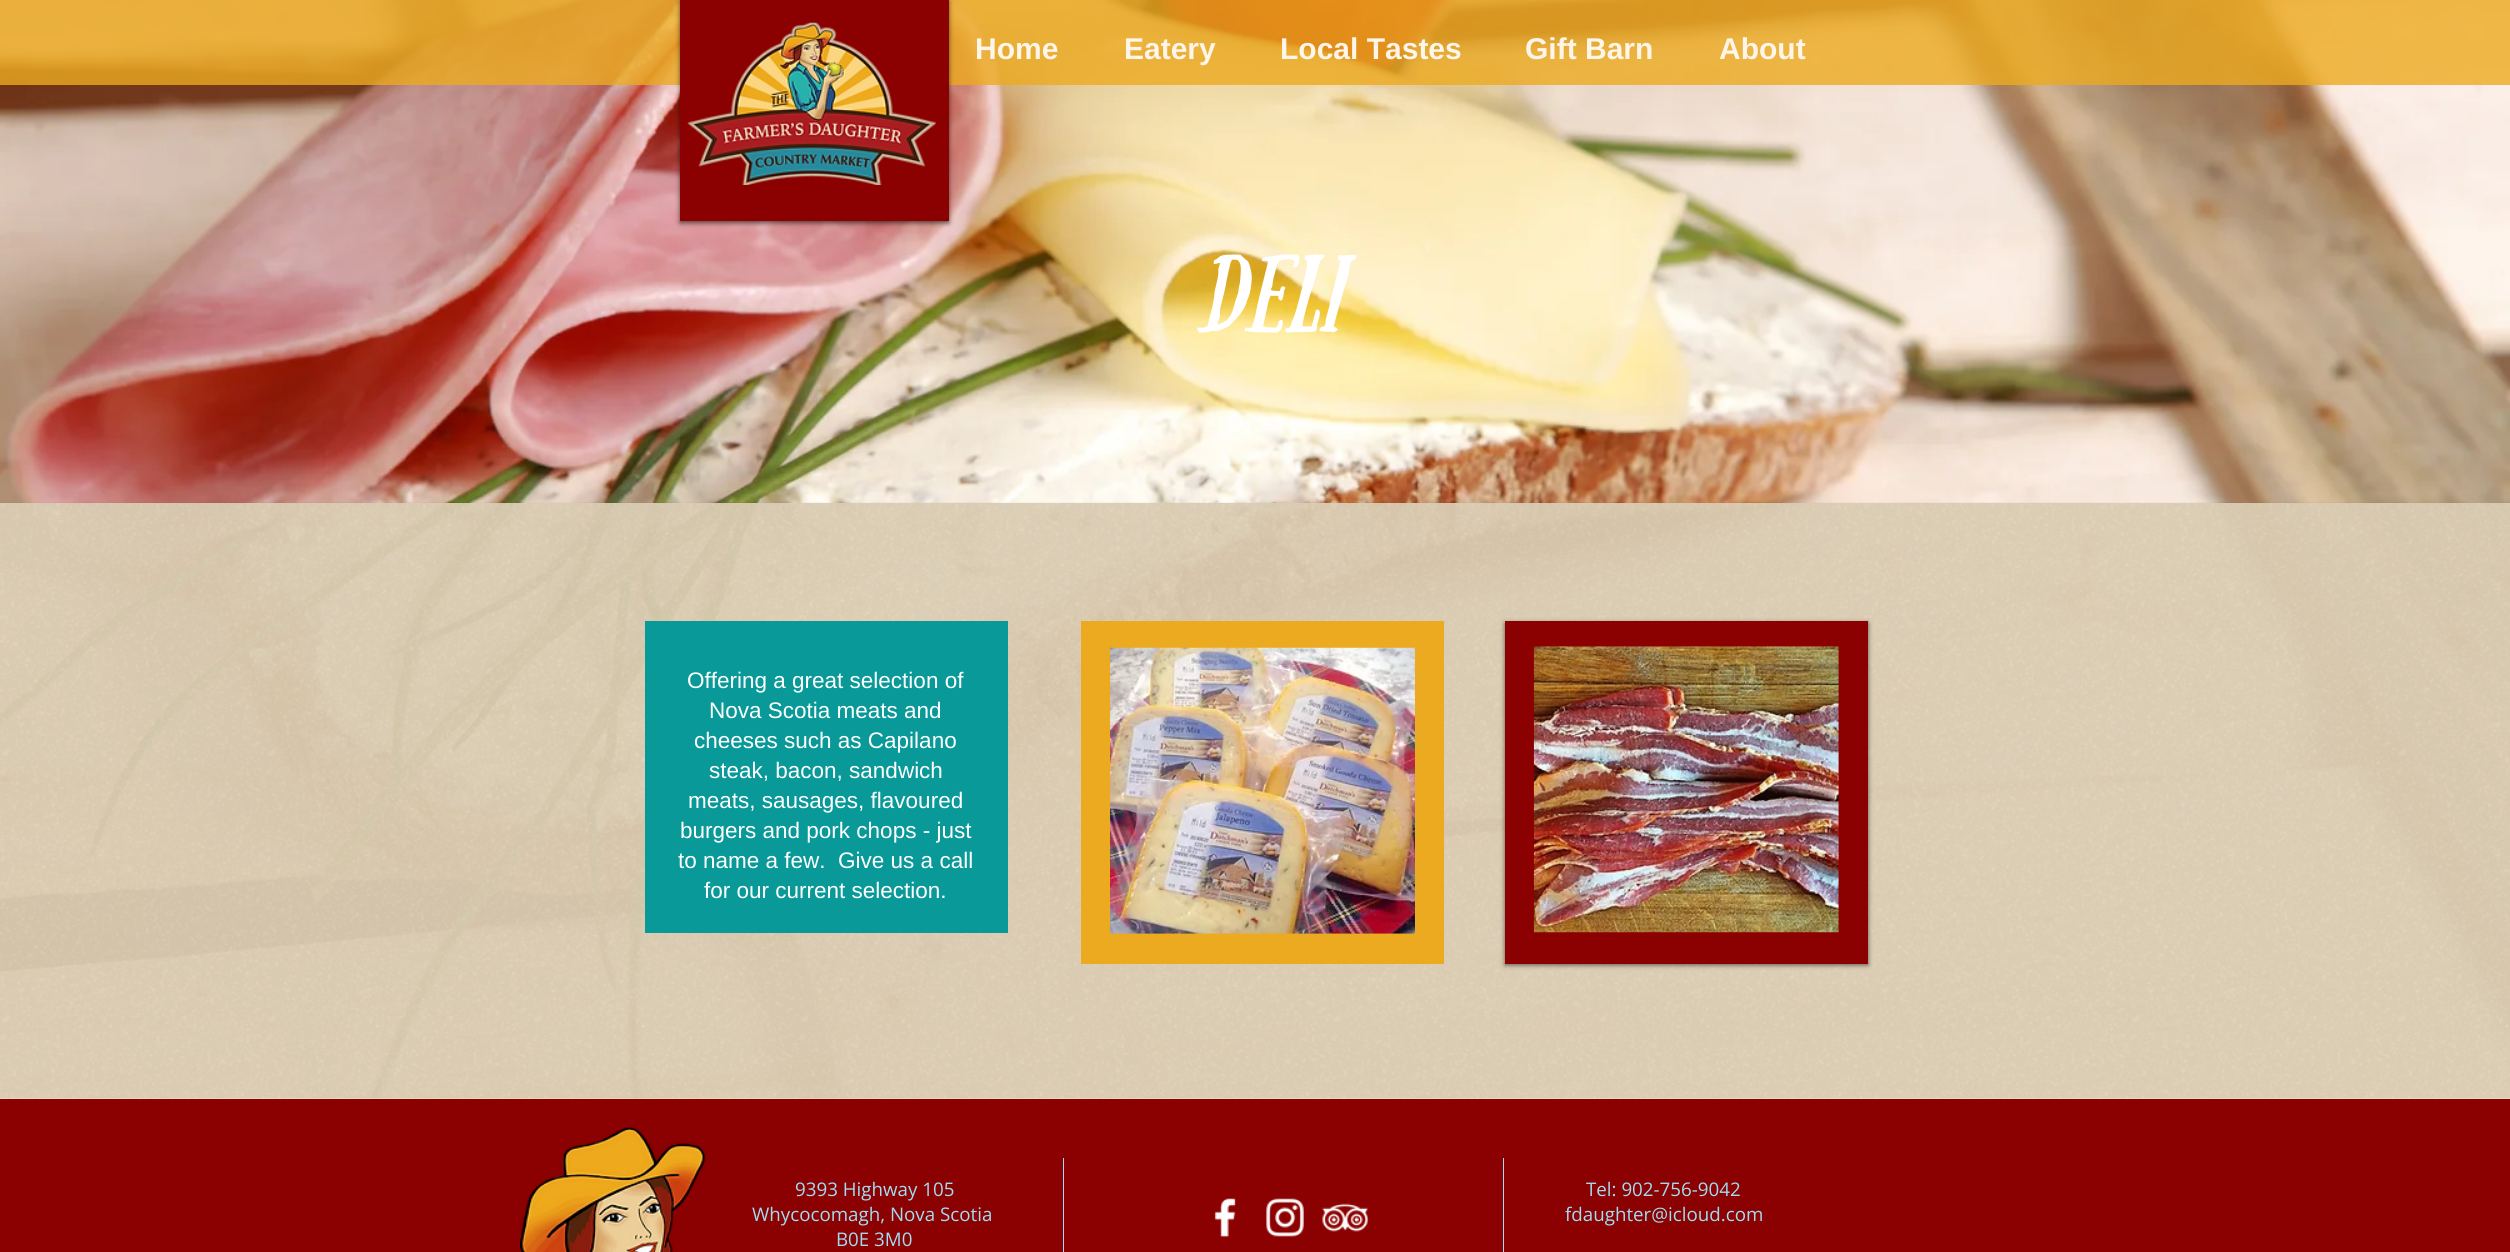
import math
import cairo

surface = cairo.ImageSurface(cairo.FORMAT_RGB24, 2510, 1252)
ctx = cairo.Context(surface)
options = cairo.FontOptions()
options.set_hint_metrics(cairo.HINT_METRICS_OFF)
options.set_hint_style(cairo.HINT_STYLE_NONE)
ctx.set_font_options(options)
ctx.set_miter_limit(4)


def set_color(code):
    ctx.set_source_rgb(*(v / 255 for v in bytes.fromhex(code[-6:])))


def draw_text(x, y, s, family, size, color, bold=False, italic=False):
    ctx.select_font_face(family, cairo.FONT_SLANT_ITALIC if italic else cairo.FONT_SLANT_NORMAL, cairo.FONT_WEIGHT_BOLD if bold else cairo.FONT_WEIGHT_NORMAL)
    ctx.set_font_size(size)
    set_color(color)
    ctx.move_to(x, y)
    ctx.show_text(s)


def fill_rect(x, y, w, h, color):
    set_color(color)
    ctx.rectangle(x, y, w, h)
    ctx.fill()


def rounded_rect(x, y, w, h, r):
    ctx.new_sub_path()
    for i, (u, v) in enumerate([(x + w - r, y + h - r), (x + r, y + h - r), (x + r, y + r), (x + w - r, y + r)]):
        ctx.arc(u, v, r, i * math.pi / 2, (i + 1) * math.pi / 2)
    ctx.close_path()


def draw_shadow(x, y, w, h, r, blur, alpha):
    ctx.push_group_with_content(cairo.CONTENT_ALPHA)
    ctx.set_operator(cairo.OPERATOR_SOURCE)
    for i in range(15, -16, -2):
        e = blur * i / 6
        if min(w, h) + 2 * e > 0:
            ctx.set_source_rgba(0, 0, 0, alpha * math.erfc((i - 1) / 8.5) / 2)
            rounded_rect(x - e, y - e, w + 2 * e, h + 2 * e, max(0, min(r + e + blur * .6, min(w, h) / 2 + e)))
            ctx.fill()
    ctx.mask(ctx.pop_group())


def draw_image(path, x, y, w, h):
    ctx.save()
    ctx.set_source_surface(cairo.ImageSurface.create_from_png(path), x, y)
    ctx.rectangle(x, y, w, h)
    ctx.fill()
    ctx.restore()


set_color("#ffffff")
ctx.paint()
draw_image("assets/img1.png", 0, 0, 2510, 1099)
ctx.set_source_rgba(0.925, 0.667, 0.125, 0.8)
ctx.rectangle(0, 0, 2510, 85)
ctx.fill()
set_color("#000000")
draw_shadow(680, 1, 269, 222, 0, 2.5, 0.6)
fill_rect(680, 0, 269, 221, "#8b0000")
draw_image("assets/img2.png", 687, 22, 249, 163)
draw_text(975, 59, "Home", "Liberation Sans", 30, "#fff5e8", bold=True)
draw_text(1124, 59, "Eatery", "Liberation Sans", 30, "#fff5e8", bold=True)
draw_text(1280, 59, "Local Tastes", "Liberation Sans", 30, "#fff5e8", bold=True)
draw_text(1525, 59, "Gift Barn", "Liberation Sans", 30, "#fff5e8", bold=True)
draw_text(1719, 59, "About", "Liberation Sans", 30, "#fff5e8", bold=True)
draw_text(1199, 313, "deli", "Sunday", 78, "#ffffff", italic=True)
ctx.set_source_rgba(0.969, 0.91, 0.796, 0.94)
ctx.rectangle(0, 503, 2510, 596)
ctx.fill()
draw_image("assets/img3.png", 0, 502, 2510, 597)
fill_rect(645, 621, 363, 312, "#099999")
draw_text(687, 688, "Offering a great selection of", "Liberation Sans", 22.5, "#ffffff")
draw_text(709, 718, "Nova Scotia meats and", "Liberation Sans", 22.5, "#ffffff")
draw_text(694, 748, "cheeses such as Capilano", "Liberation Sans", 22.5, "#ffffff")
draw_text(709, 778, "steak, bacon, sandwich", "Liberation Sans", 22.5, "#ffffff")
draw_text(688, 808, "meats, sausages, flavoured", "Liberation Sans", 22.5, "#ffffff")
draw_text(680, 838, "burgers and pork chops - just", "Liberation Sans", 22.5, "#ffffff")
draw_text(678, 868, "to name a few.  Give us a call", "Liberation Sans", 22.5, "#ffffff")
draw_text(704, 898, "for our current selection.", "Liberation Sans", 22.5, "#ffffff")
fill_rect(1081, 621, 363, 343, "#ecaa20")
draw_image("assets/img4.png", 1110, 647, 305, 287)
set_color("#000000")
draw_shadow(1505, 623, 363, 342, 0, 2.5, 0.6)
fill_rect(1505, 621, 363, 343, "#8b0000")
draw_image("assets/img5.png", 1533, 646, 306, 287)
fill_rect(0, 1099, 2510, 153, "#8b0000")
draw_image("assets/img6.png", 520, 1127, 186, 125)
draw_text(795, 1196, "9393 Highway 105", "Open Sans", 18.75, "#a1dcf2")
draw_text(752, 1221, "Whycocomagh, Nova Scotia", "Open Sans", 18.75, "#a1dcf2")
draw_text(836, 1246, "B0E 3M0", "Open Sans", 18.75, "#a1dcf2")
fill_rect(1063, 1158, 1, 94, "#a1dcf2")
draw_image("assets/img7.png", 1214, 1198, 22, 40)
draw_image("assets/img8.png", 1266, 1198, 38, 39)
draw_image("assets/img9.png", 1322, 1203, 47, 29)
fill_rect(1503, 1158, 1, 94, "#a1dcf2")
draw_text(1586, 1196, "Tel: 902-756-9042", "Open Sans", 18.75, "#a1dcf2")
draw_text(1565, 1221, "fdaughter@icloud.com", "Open Sans", 18.75, "#a1dcf2")
surface.write_to_png("output.png")
